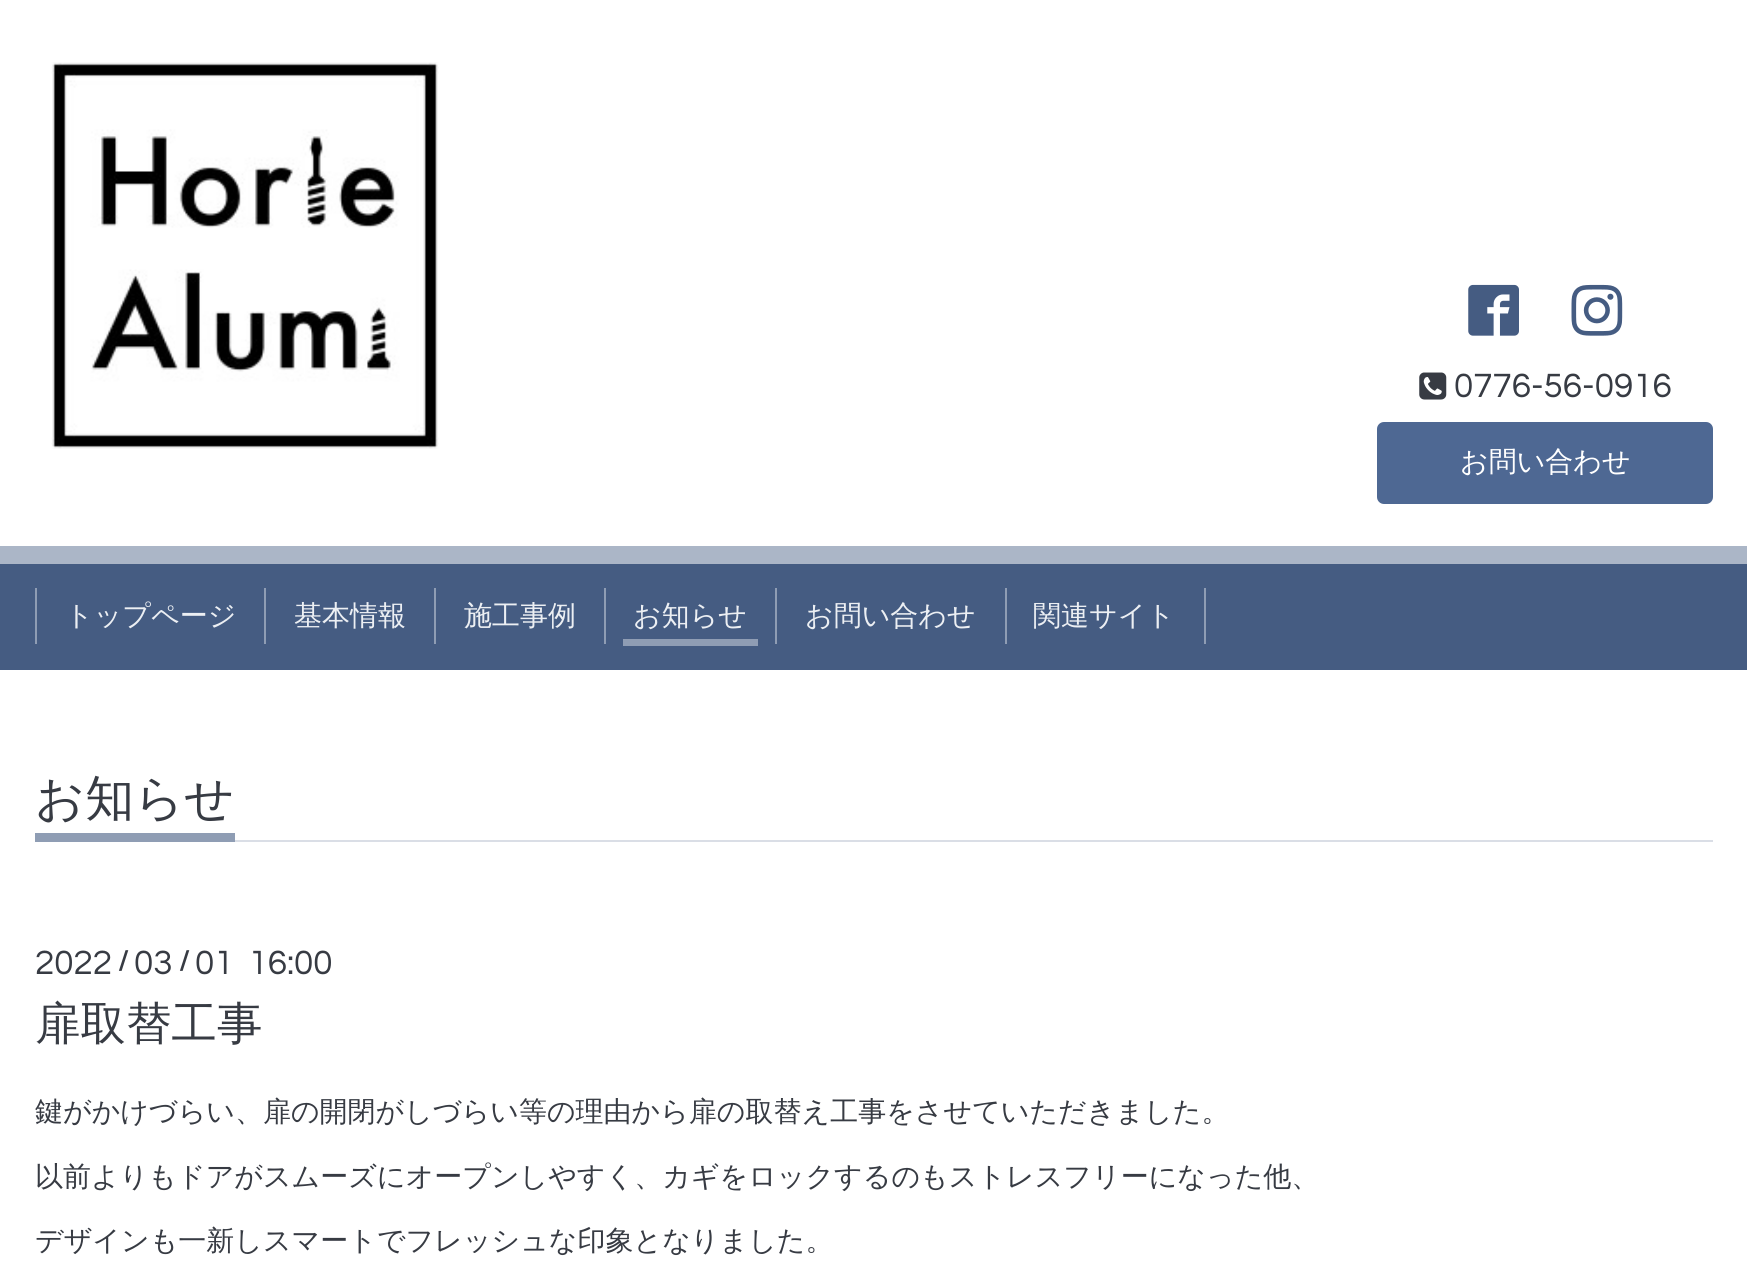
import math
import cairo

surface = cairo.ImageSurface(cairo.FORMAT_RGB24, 1747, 1264)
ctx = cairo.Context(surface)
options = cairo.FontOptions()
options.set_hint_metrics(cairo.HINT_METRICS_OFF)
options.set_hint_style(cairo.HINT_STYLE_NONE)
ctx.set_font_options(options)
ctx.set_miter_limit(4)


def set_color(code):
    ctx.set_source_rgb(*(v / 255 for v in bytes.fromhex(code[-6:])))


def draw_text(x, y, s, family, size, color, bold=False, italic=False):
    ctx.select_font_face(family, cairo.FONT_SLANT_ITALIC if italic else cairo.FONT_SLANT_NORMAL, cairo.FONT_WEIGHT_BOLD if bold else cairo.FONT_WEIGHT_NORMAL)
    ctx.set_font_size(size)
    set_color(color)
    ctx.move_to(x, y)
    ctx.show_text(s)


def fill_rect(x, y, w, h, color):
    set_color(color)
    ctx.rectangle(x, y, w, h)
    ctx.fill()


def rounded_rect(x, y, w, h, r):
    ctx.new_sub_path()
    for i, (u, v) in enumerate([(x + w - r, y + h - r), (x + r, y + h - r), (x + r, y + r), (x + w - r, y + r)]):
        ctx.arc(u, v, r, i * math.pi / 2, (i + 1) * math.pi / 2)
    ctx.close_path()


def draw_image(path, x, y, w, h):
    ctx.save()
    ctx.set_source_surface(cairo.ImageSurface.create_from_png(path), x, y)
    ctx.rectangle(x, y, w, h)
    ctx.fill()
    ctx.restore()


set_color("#ffffff")
ctx.paint()
draw_image("assets/img1.png", 51, 62, 388, 387)
draw_image("assets/img2.png", 1468, 284, 51, 52)
draw_image("assets/img3.png", 1571, 284, 52, 52)
draw_image("assets/img4.png", 1419, 372, 28, 28)
draw_text(1454, 397, "0776-56-0916", "Questrial", 35, "#373b43")
set_color("#4e6893")
rounded_rect(1378, 423, 334, 80, 6)
ctx.fill_preserve()
ctx.stroke()
draw_text(1460, 471, "お問い合わせ", "WenQuanYi Zen Hei Medium", 28, "#ffffff")
fill_rect(0, 546, 1747, 18, "#abb6c7")
fill_rect(0, 564, 1747, 106, "#455c82")
fill_rect(264, 588, 2, 56, "#8f9db4")
fill_rect(35, 588, 2, 56, "#8f9db4")
draw_text(65, 625, "トップページ", "WenQuanYi Zen Hei Medium", 28, "#eceff3")
fill_rect(434, 588, 2, 56, "#8f9db4")
draw_text(294, 625, "基本情報", "WenQuanYi Zen Hei Medium", 28, "#eceff3")
fill_rect(604, 588, 2, 56, "#8f9db4")
draw_text(464, 625, "施工事例", "WenQuanYi Zen Hei Medium", 28, "#eceff3")
fill_rect(775, 588, 2, 56, "#8f9db4")
draw_text(633, 625, "お知らせ", "WenQuanYi Zen Hei Medium", 28, "#eceff3")
fill_rect(623, 639, 135, 7, "#8f9db4")
fill_rect(1005, 588, 2, 56, "#8f9db4")
draw_text(805, 625, "お問い合わせ", "WenQuanYi Zen Hei Medium", 28, "#eceff3")
fill_rect(1204, 588, 2, 56, "#8f9db4")
draw_text(1033, 625, "関連サイト", "WenQuanYi Zen Hei Medium", 28, "#eceff3")
fill_rect(235, 840, 1478, 2, "#dadee6")
fill_rect(35, 833, 200, 9, "#8f9db4")
draw_text(35, 815, "お知らせ", "WenQuanYi Zen Hei Medium", 49, "#373b43")
draw_text(35, 974, "2022", "Questrial", 35, "#373b43")
draw_text(118, 970, "/", "Questrial", 28, "#373b43", bold=True)
draw_text(134, 974, "03", "Questrial", 35, "#373b43")
draw_text(179, 970, "/", "Questrial", 28, "#373b43", bold=True)
draw_text(195, 974, "01  16:00", "Questrial", 35, "#373b43")
draw_text(35, 1039, "扉取替工事", "WenQuanYi Zen Hei Medium", 45.5, "#373b43")
draw_text(35, 1121, "鍵がかけづらい、扉の開閉がしづらい等の理由から扉の取替え工事をさせていただきました。", "WenQuanYi Zen Hei Medium", 28, "#373b43")
draw_text(35, 1186, "以前よりもドアがスムーズにオープンしやすく、カギをロックするのもストレスフリーになった他、", "WenQuanYi Zen Hei Medium", 28, "#373b43")
draw_text(35, 1250, "デザインも一新しスマートでフレッシュな印象となりました。", "WenQuanYi Zen Hei Medium", 28, "#373b43")
surface.write_to_png("output.png")
